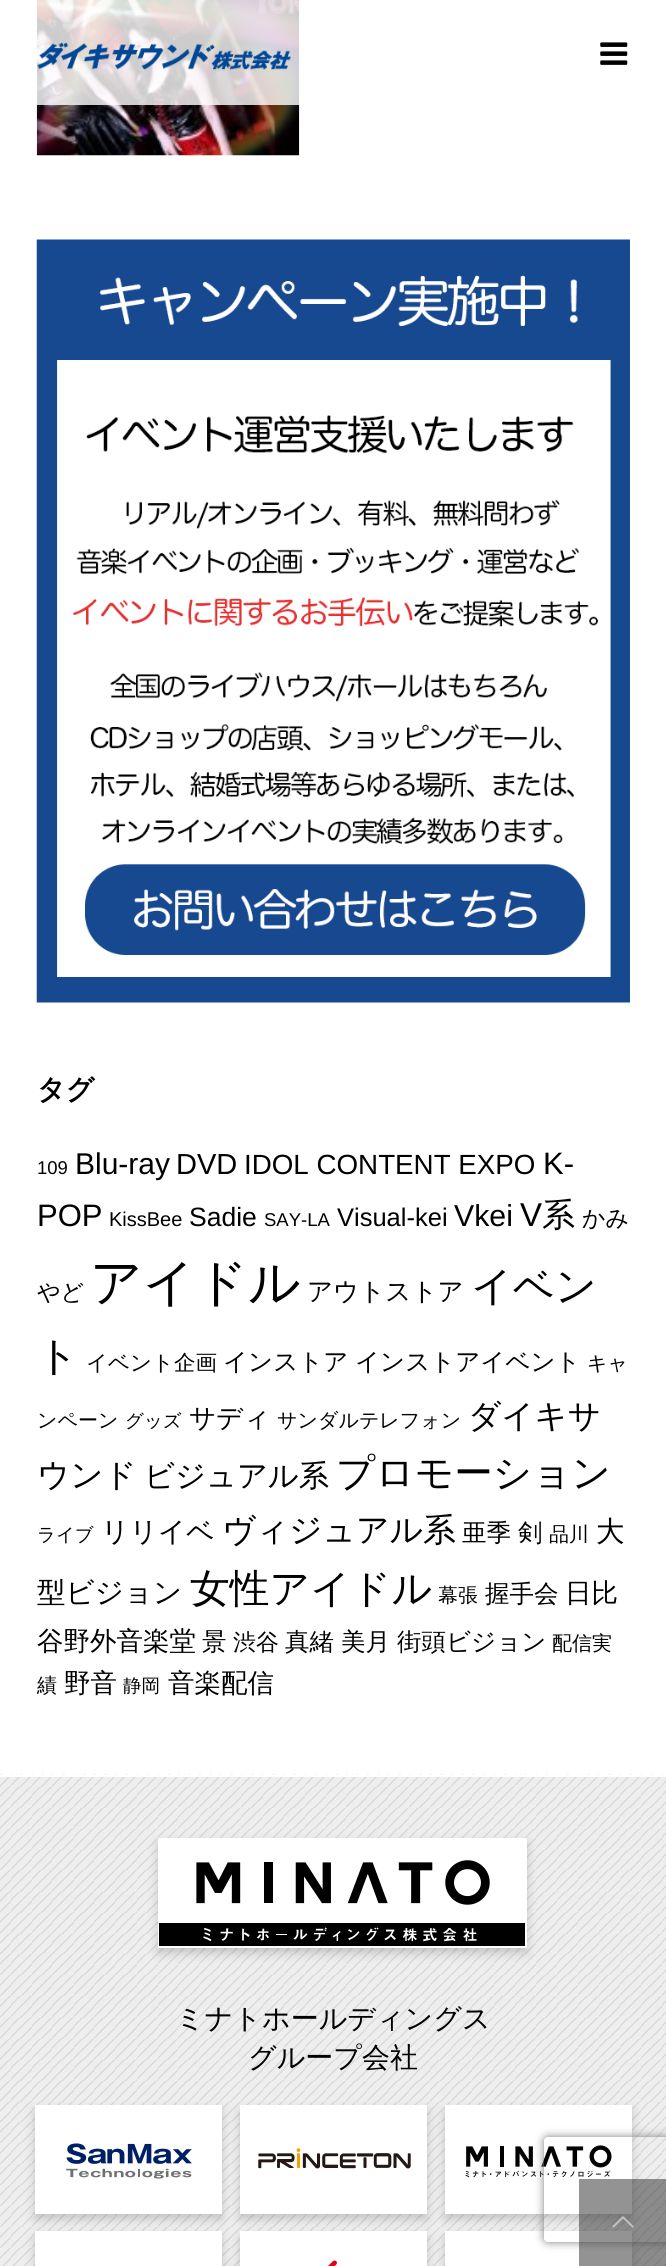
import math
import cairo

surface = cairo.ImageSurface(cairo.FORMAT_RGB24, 666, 2266)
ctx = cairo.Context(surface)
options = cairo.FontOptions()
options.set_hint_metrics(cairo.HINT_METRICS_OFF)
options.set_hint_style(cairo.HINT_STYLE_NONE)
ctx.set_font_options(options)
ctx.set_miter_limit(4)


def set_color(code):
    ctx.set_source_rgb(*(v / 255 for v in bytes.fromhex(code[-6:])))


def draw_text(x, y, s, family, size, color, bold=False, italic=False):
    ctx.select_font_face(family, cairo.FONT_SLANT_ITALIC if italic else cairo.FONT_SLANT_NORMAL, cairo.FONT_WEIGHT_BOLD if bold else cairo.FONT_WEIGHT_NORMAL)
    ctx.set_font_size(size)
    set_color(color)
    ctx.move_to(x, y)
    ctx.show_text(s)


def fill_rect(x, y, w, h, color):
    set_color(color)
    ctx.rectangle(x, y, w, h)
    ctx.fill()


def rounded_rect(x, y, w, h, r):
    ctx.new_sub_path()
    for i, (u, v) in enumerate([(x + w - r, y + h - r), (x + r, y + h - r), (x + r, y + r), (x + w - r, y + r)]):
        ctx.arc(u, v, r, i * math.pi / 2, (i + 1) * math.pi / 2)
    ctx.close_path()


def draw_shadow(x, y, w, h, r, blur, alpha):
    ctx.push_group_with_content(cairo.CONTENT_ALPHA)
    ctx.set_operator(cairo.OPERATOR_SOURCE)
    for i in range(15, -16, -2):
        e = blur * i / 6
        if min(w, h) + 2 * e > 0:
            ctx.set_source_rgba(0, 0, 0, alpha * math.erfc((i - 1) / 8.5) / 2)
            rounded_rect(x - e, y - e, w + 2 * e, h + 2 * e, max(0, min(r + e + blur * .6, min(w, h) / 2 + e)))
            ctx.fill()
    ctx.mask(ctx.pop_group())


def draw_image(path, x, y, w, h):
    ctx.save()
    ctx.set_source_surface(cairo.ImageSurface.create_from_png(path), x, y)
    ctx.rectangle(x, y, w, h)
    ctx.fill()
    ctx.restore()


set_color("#ffffff")
ctx.paint()
draw_image("assets/img3.png", 36, 0, 264, 156)
ctx.set_source_rgba(1, 1, 1, 0.8)
ctx.rectangle(36, 0, 264, 105)
ctx.fill()
draw_image("assets/img1.png", 37, 42, 254, 29)
draw_image("assets/img2.png", 600, 42, 28, 23)
draw_image("assets/img4.png", 36, 239, 594, 764)
draw_text(37, 1099, "タグ", "WenQuanYi Zen Hei", 28, "#000000", bold=True)
draw_text(37, 1174, "109", "Liberation Sans", 18.5, "#000000")
draw_text(75, 1174, "Blu-ray", "Liberation Sans", 30, "#000000")
draw_text(176, 1174, "DVD", "Liberation Sans", 29, "#000000")
draw_text(244, 1174, "IDOL CONTENT EXPO", "Liberation Sans", 27.75, "#000000")
draw_text(543, 1174, "K-", "Liberation Sans", 31, "#000000")
draw_text(37, 1226, "POP", "Liberation Sans", 31, "#000000")
draw_text(109, 1226, "KissBee", "Liberation Sans", 20, "#000000")
draw_text(189, 1226, "Sadie", "Liberation Sans", 26.5, "#000000")
draw_text(264, 1226, "SAY-LA", "Liberation Sans", 18.5, "#000000")
draw_text(337, 1226, "Visual-kei", "Liberation Sans", 25.5, "#000000")
draw_text(454, 1226, "Vkei", "Liberation Sans", 30.25, "#000000")
draw_text(520, 1226, "V", "Liberation Sans", 33, "#000000")
draw_text(542, 1226, "系", "WenQuanYi Zen Hei Medium", 33, "#000000")
draw_text(582, 1226, "かみ", "WenQuanYi Zen Hei Medium", 23, "#000000")
draw_text(37, 1300, "やど", "WenQuanYi Zen Hei Medium", 23, "#000000")
draw_text(90, 1300, "アイドル", "WenQuanYi Zen Hei Medium", 51.5, "#000000")
draw_text(307, 1300, "アウトストア", "WenQuanYi Zen Hei Medium", 25.5, "#000000")
draw_text(471, 1300, "イベン", "WenQuanYi Zen Hei Medium", 41, "#000000")
draw_text(37, 1370, "ト", "WenQuanYi Zen Hei Medium", 41, "#000000")
draw_text(86, 1370, "イベント企画", "WenQuanYi Zen Hei Medium", 21.5, "#000000")
draw_text(223, 1370, "インストア", "WenQuanYi Zen Hei Medium", 24.5, "#000000")
draw_text(355, 1370, "インストアイベント", "WenQuanYi Zen Hei Medium", 24.5, "#000000")
draw_text(587, 1370, "キャ", "WenQuanYi Zen Hei Medium", 20, "#000000")
draw_text(37, 1427, "ンペーン", "WenQuanYi Zen Hei Medium", 20, "#000000")
draw_text(125, 1427, "グッズ", "WenQuanYi Zen Hei Medium", 18.5, "#000000")
draw_text(189, 1427, "サディ", "WenQuanYi Zen Hei Medium", 26.5, "#000000")
draw_text(277, 1427, "サンダルテレフォン", "WenQuanYi Zen Hei Medium", 20, "#000000")
draw_text(468, 1427, "ダイキサ", "WenQuanYi Zen Hei Medium", 32.5, "#000000")
draw_text(37, 1486, "ウンド", "WenQuanYi Zen Hei Medium", 32.5, "#000000")
draw_text(144, 1486, "ビジュアル系", "WenQuanYi Zen Hei Medium", 30.25, "#000000")
draw_text(336, 1486, "プロモーション", "WenQuanYi Zen Hei Medium", 38.5, "#000000")
draw_text(37, 1541, "ライブ", "WenQuanYi Zen Hei Medium", 18.5, "#000000")
draw_text(101, 1541, "リリイベ", "WenQuanYi Zen Hei Medium", 27.75, "#000000")
draw_text(222, 1541, "ヴィジュアル系", "WenQuanYi Zen Hei Medium", 32.75, "#000000")
draw_text(462, 1541, "亜季", "WenQuanYi Zen Hei Medium", 24.5, "#000000")
draw_text(518, 1541, "剣", "WenQuanYi Zen Hei Medium", 24.5, "#000000")
draw_text(549, 1541, "品川", "WenQuanYi Zen Hei Medium", 20, "#000000")
draw_text(596, 1541, "大", "WenQuanYi Zen Hei Medium", 28.5, "#000000")
draw_text(37, 1602, "型ビジョン", "WenQuanYi Zen Hei Medium", 28.5, "#000000")
draw_text(190, 1602, "女性アイドル", "WenQuanYi Zen Hei Medium", 39.75, "#000000")
draw_text(438, 1602, "幕張", "WenQuanYi Zen Hei Medium", 20, "#000000")
draw_text(485, 1602, "握手会", "WenQuanYi Zen Hei Medium", 24.5, "#000000")
draw_text(565, 1602, "日比", "WenQuanYi Zen Hei Medium", 26.5, "#000000")
draw_text(37, 1650, "谷野外音楽堂", "WenQuanYi Zen Hei Medium", 26.5, "#000000")
draw_text(202, 1650, "景", "WenQuanYi Zen Hei Medium", 24.5, "#000000")
draw_text(233, 1650, "渋谷", "WenQuanYi Zen Hei Medium", 23, "#000000")
draw_text(285, 1650, "真緒", "WenQuanYi Zen Hei Medium", 24.5, "#000000")
draw_text(341, 1650, "美月", "WenQuanYi Zen Hei Medium", 24.5, "#000000")
draw_text(397, 1650, "街頭ビジョン", "WenQuanYi Zen Hei Medium", 24.5, "#000000")
draw_text(552, 1650, "配信実", "WenQuanYi Zen Hei Medium", 20, "#000000")
draw_text(37, 1692, "績", "WenQuanYi Zen Hei Medium", 20, "#000000")
draw_text(64, 1692, "野音", "WenQuanYi Zen Hei Medium", 26.5, "#000000")
draw_text(123, 1692, "静岡", "WenQuanYi Zen Hei Medium", 18.5, "#000000")
draw_text(168, 1692, "音楽配信", "WenQuanYi Zen Hei Medium", 26.5, "#000000")
fill_rect(0, 1777, 666, 489, "#eeeeee")
draw_image("assets/img5.png", 0, 1774, 666, 492)
fill_rect(0, 1775, 666, 2, "#ffffff")
set_color("#000000")
draw_shadow(158, 1843, 369, 110, 0, 5, 0.18)
fill_rect(158, 1838, 369, 110, "#ffffff")
draw_image("assets/img6.png", 159, 1860, 366, 86)
draw_text(176, 2028, "ミナトホールディングス", "WenQuanYi Zen Hei Medium", 28, "#000000")
draw_text(248, 2067, "グループ会社", "WenQuanYi Zen Hei Medium", 28, "#000000")
set_color("#000000")
draw_shadow(35, 2111, 187, 108, 0, 5, 0.18)
fill_rect(35, 2105, 187, 109, "#ffffff")
draw_image("assets/img7.png", 66, 2143, 126, 36)
set_color("#000000")
draw_shadow(240, 2111, 187, 108, 0, 5, 0.18)
fill_rect(240, 2105, 187, 109, "#ffffff")
draw_image("assets/img8.png", 258, 2148, 153, 21)
set_color("#000000")
draw_shadow(445, 2111, 187, 108, 0, 5, 0.18)
fill_rect(445, 2105, 187, 109, "#ffffff")
draw_image("assets/img9.png", 465, 2145, 147, 33)
set_color("#000000")
draw_shadow(35, 2237, 187, 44, 0, 5, 0.18)
fill_rect(35, 2231, 187, 35, "#ffffff")
set_color("#000000")
draw_shadow(240, 2237, 187, 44, 0, 5, 0.18)
fill_rect(240, 2231, 187, 35, "#ffffff")
draw_image("assets/img10.png", 328, 2260, 9, 6)
set_color("#000000")
draw_shadow(445, 2237, 187, 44, 0, 5, 0.18)
fill_rect(445, 2231, 187, 35, "#ffffff")
ctx.save()
ctx.set_fill_rule(cairo.FILL_RULE_EVEN_ODD)
ctx.new_path()
ctx.move_to(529, 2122)
ctx.line_to(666, 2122)
ctx.line_to(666, 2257)
ctx.line_to(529, 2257)
ctx.close_path()
ctx.move_to(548, 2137)
ctx.line_to(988, 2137)
ctx.curve_to(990, 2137, 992, 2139, 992, 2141)
ctx.line_to(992, 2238)
ctx.curve_to(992, 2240, 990, 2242, 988, 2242)
ctx.line_to(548, 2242)
ctx.curve_to(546, 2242, 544, 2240, 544, 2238)
ctx.line_to(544, 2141)
ctx.curve_to(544, 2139, 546, 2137, 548, 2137)
ctx.close_path()
ctx.clip()
set_color("#808080")
draw_shadow(544, 2137, 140, 105, 4, 4.5, 1)
ctx.restore()
ctx.set_source_rgba(0.2, 0.2, 0.2, 0.53)
ctx.rectangle(579, 2179, 87, 87)
ctx.fill()
draw_image("assets/img11.png", 612, 2216, 22, 12)
surface.write_to_png("output.png")
